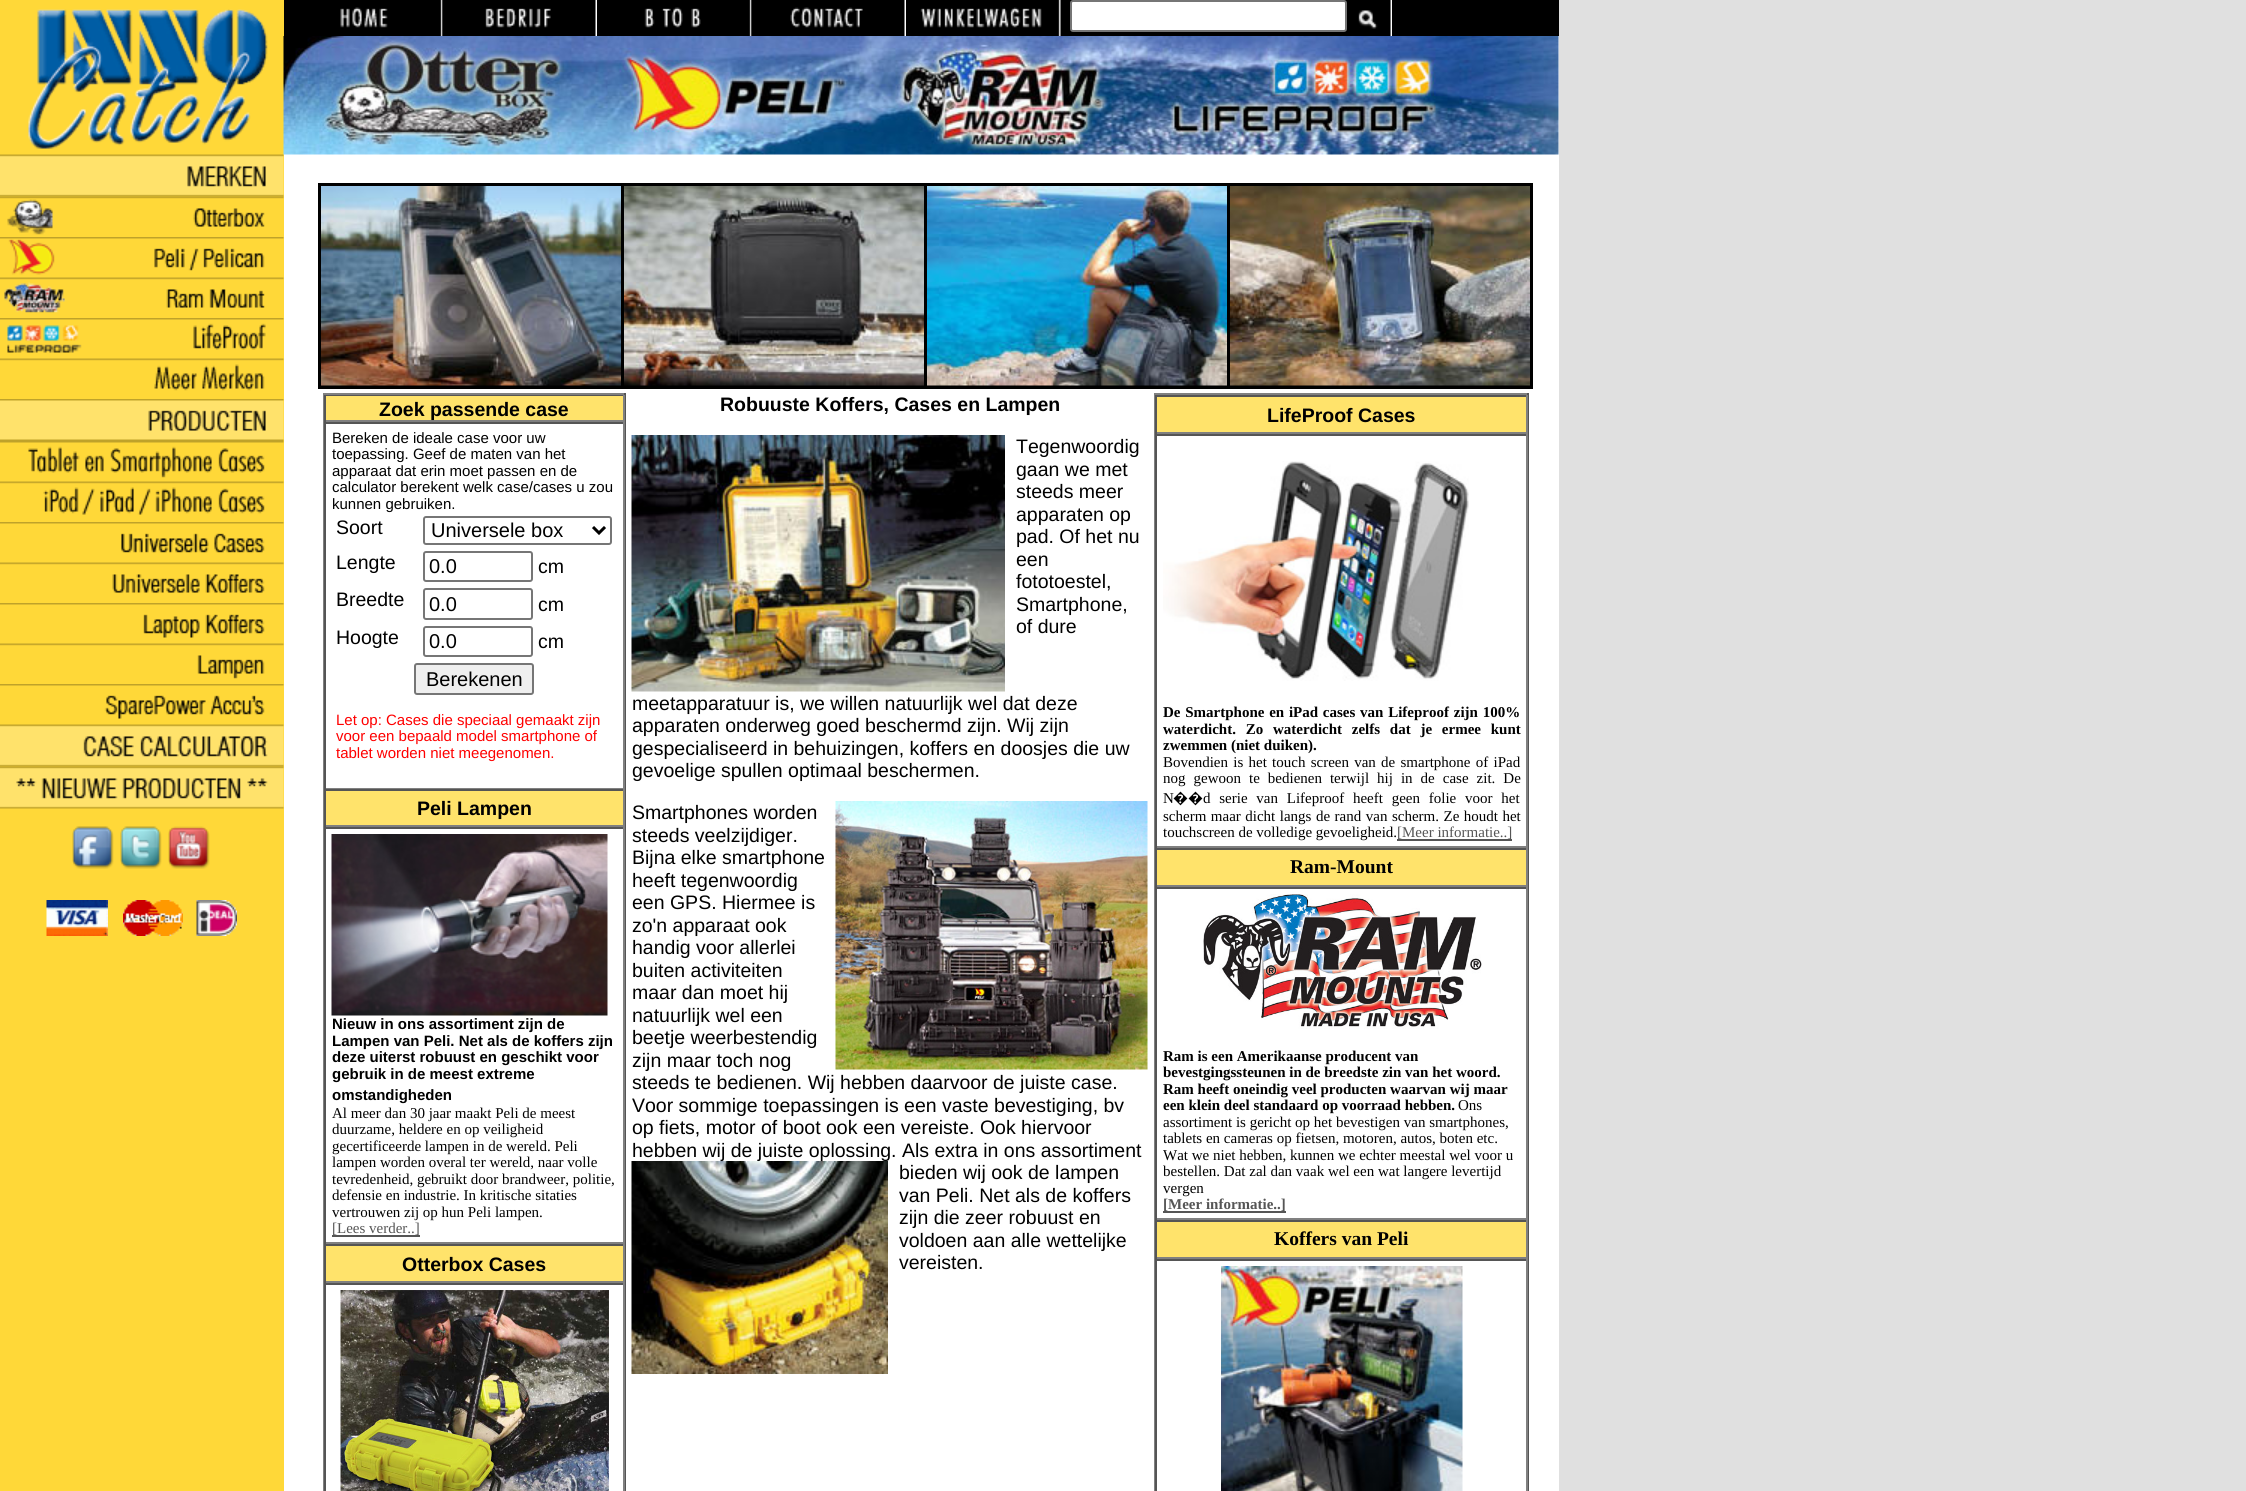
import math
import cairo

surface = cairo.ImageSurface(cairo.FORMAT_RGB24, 2246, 1491)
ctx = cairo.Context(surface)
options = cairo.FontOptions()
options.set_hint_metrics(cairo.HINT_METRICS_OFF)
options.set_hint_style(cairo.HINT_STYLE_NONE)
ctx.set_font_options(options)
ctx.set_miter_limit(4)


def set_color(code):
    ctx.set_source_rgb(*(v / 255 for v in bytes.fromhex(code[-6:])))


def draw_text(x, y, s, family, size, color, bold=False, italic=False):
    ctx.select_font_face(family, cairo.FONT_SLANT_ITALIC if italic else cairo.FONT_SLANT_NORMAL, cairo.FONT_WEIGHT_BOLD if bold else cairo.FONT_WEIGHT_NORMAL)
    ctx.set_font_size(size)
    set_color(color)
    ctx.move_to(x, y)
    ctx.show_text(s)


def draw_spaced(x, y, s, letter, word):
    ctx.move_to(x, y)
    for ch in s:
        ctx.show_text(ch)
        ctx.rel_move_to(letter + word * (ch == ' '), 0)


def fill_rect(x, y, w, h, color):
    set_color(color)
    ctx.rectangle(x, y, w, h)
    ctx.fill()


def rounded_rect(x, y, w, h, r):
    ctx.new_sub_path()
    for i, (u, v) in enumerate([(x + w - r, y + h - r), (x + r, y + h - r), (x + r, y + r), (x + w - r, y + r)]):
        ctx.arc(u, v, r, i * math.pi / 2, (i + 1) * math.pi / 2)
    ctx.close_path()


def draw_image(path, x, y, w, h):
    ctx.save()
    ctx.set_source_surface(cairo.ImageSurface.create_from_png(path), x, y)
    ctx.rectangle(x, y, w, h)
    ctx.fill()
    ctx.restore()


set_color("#ffffff")
ctx.paint()
fill_rect(0, 0, 284, 1491, "#ffd838")
draw_image("assets/img1.png", 28, 9, 240, 140)
draw_image("assets/img2.png", 0, 154, 284, 43)
draw_image("assets/img3.png", 0, 196, 284, 39)
draw_image("assets/img4.png", 0, 237, 284, 38)
draw_image("assets/img5.png", 0, 277, 284, 36)
draw_image("assets/img6.png", 0, 318, 284, 35)
draw_image("assets/img7.png", 0, 358, 284, 33)
draw_image("assets/img8.png", 0, 399, 284, 42)
draw_image("assets/img9.png", 0, 441, 284, 37)
draw_image("assets/img10.png", 0, 481, 284, 34)
draw_image("assets/img11.png", 0, 522, 284, 31)
draw_image("assets/img12.png", 0, 562, 284, 31)
draw_image("assets/img13.png", 0, 603, 284, 35)
draw_image("assets/img14.png", 0, 643, 284, 36)
draw_image("assets/img15.png", 0, 684, 284, 35)
draw_image("assets/img16.png", 0, 724, 284, 43)
draw_image("assets/img17.png", 0, 766, 284, 43)
draw_image("assets/img18.png", 72, 826, 42, 43)
draw_image("assets/img19.png", 120, 826, 42, 43)
draw_image("assets/img20.png", 168, 826, 42, 43)
draw_image("assets/img21.png", 46, 900, 62, 36)
draw_image("assets/img22.png", 123, 900, 60, 36)
draw_image("assets/img23.png", 196, 900, 41, 36)
fill_rect(284, 0, 1275, 36, "#000000")
draw_image("assets/img24.png", 340, 0, 103, 36)
draw_image("assets/img25.png", 442, 0, 155, 36)
draw_image("assets/img26.png", 644, 0, 108, 36)
draw_image("assets/img27.png", 751, 0, 155, 36)
draw_image("assets/img28.png", 920, 0, 141, 36)
set_color("#ffffff")
rounded_rect(1071, 1, 275, 30, 2)
ctx.fill_preserve()
set_color("#767676")
ctx.stroke()
draw_image("assets/img29.png", 1358, 0, 34, 36)
draw_image("assets/img30.png", 283, 36, 1276, 119)
fill_rect(1559, 0, 687, 1491, "#e0e0e0")
ctx.rectangle(319, 184, 1213, 204)
set_color("#000000")
ctx.stroke()
ctx.rectangle(321, 186, 301, 200)
ctx.stroke()
draw_image("assets/img31.png", 321, 186, 300, 200)
ctx.rectangle(624, 186, 301, 200)
ctx.stroke()
draw_image("assets/img32.png", 624, 186, 300, 200)
ctx.rectangle(927, 186, 301, 200)
ctx.stroke()
draw_image("assets/img33.png", 927, 186, 300, 200)
ctx.rectangle(1230, 186, 301, 200)
ctx.stroke()
draw_image("assets/img34.png", 1230, 186, 300, 200)
fill_rect(323, 393, 303, 2, "#808080")
fill_rect(624, 393, 2, 1098, "#555555")
fill_rect(323, 393, 2, 1098, "#808080")
fill_rect(324, 395, 300, 1, "#555555")
fill_rect(623, 395, 2, 27, "#808080")
fill_rect(324, 420, 300, 2, "#808080")
fill_rect(324, 395, 2, 27, "#555555")
fill_rect(326, 396, 297, 24, "#ffe36b")
draw_text(379, 416, "Zoek passende case", "Liberation Sans", 19.5, "#000000", bold=True)
fill_rect(324, 422, 300, 2, "#555555")
fill_rect(623, 422, 2, 367, "#808080")
fill_rect(324, 788, 300, 1, "#808080")
fill_rect(324, 422, 2, 367, "#555555")
draw_text(332, 443, "Bereken de ideale case voor uw", "Liberation Sans", 15, "#000000")
draw_text(332, 459, "toepassing. Geef de maten van het", "Liberation Sans", 15, "#000000")
draw_text(332, 476, "apparaat dat erin moet passen en de", "Liberation Sans", 15, "#000000")
draw_text(332, 492, "calculator berekent welk case/cases u zou", "Liberation Sans", 15, "#000000")
draw_text(332, 509, "kunnen gebruiken.", "Liberation Sans", 15, "#000000")
draw_text(336, 534, "Soort", "Liberation Sans", 19.5, "#000000")
rounded_rect(424, 517, 187, 27, 2)
set_color("#767676")
ctx.stroke()
ctx.new_path()
ctx.move_to(593, 527)
ctx.line_to(599, 533)
ctx.line_to(605, 527)
set_color("#000000")
ctx.set_line_width(3)
ctx.stroke()
draw_text(431, 537, "Universele box", "Liberation Sans", 20, "#000000")
draw_text(336, 569, "Lengte", "Liberation Sans", 19.5, "#000000")
rounded_rect(424, 552, 108, 29, 2)
set_color("#767676")
ctx.set_line_width(2)
ctx.stroke()
draw_text(429, 573, "0.0", "Liberation Sans", 20, "#000000")
draw_text(538, 573, "cm", "Liberation Sans", 19.5, "#000000")
draw_text(336, 606, "Breedte", "Liberation Sans", 19.5, "#000000")
rounded_rect(424, 589, 108, 30, 2)
set_color("#767676")
ctx.stroke()
draw_text(429, 611, "0.0", "Liberation Sans", 20, "#000000")
draw_text(538, 611, "cm", "Liberation Sans", 19.5, "#000000")
draw_text(336, 644, "Hoogte", "Liberation Sans", 19.5, "#000000")
rounded_rect(424, 627, 108, 29, 2)
set_color("#767676")
ctx.stroke()
draw_text(429, 648, "0.0", "Liberation Sans", 20, "#000000")
draw_text(538, 648, "cm", "Liberation Sans", 19.5, "#000000")
set_color("#efefef")
rounded_rect(415, 664, 118, 30, 2)
ctx.fill_preserve()
set_color("#767676")
ctx.stroke()
draw_text(426, 686, "Berekenen", "Liberation Sans", 20, "#000000")
draw_text(336, 725, "Let op: Cases die speciaal gemaakt zijn", "Liberation Sans", 15, "#ff0000")
draw_text(336, 741, "voor een bepaald model smartphone of", "Liberation Sans", 15, "#ff0000")
draw_text(336, 758, "tablet worden niet meegenomen.", "Liberation Sans", 15, "#ff0000")
fill_rect(326, 791, 297, 34, "#ffe36b")
fill_rect(324, 789, 300, 2, "#555555")
fill_rect(623, 789, 2, 38, "#808080")
fill_rect(324, 825, 300, 2, "#808080")
fill_rect(324, 789, 2, 38, "#555555")
draw_text(417, 815, "Peli Lampen", "Liberation Sans", 19.5, "#000000", bold=True)
fill_rect(324, 827, 300, 2, "#555555")
fill_rect(623, 827, 2, 417, "#808080")
fill_rect(324, 1242, 300, 2, "#808080")
fill_rect(324, 827, 2, 417, "#555555")
draw_image("assets/img35.png", 331, 834, 277, 182)
draw_text(332, 1029, "Nieuw in ons assortiment zijn de", "Liberation Sans", 15, "#000000", bold=True)
draw_text(332, 1046, "Lampen van Peli. Net als de koffers zijn", "Liberation Sans", 15, "#000000", bold=True)
draw_text(332, 1062, "deze uiterst robuust en geschikt voor", "Liberation Sans", 15, "#000000", bold=True)
draw_text(332, 1079, "gebruik in de meest extreme", "Liberation Sans", 15, "#000000", bold=True)
draw_text(332, 1100, "omstandigheden", "Liberation Sans", 15, "#000000", bold=True)
draw_text(332, 1118, "Al meer dan 30 jaar maakt Peli de meest", "Liberation Serif", 15, "#000000")
draw_text(332, 1134, "duurzame, heldere en op veiligheid", "Liberation Serif", 15, "#000000")
draw_text(332, 1151, "gecertificeerde lampen in de wereld. Peli", "Liberation Serif", 15, "#000000")
draw_text(332, 1167, "lampen worden overal ter wereld, naar volle", "Liberation Serif", 15, "#000000")
draw_text(332, 1184, "tevredenheid, gebruikt door brandweer, politie,", "Liberation Serif", 15, "#000000")
draw_text(332, 1200, "defensie en industrie. In kritische sitaties", "Liberation Serif", 15, "#000000")
draw_text(332, 1217, "vertrouwen zij op hun Peli lampen.", "Liberation Serif", 15, "#000000")
draw_text(332, 1233, "[Lees verder..]", "Liberation Serif", 15, "#555555")
fill_rect(332, 1235, 88, 2, "#555555")
fill_rect(326, 1246, 297, 35, "#ffe36b")
fill_rect(324, 1244, 300, 2, "#555555")
fill_rect(623, 1244, 2, 39, "#808080")
fill_rect(324, 1281, 300, 2, "#808080")
fill_rect(324, 1244, 2, 39, "#555555")
draw_text(402, 1271, "Otterbox Cases", "Liberation Sans", 19.5, "#000000", bold=True)
fill_rect(324, 1283, 300, 2, "#555555")
fill_rect(623, 1283, 2, 208, "#808080")
fill_rect(324, 1283, 2, 208, "#555555")
draw_image("assets/img36.png", 340, 1290, 269, 201)
draw_text(720, 411, "Robuuste Koffers, Cases en Lampen", "Liberation Sans", 19.5, "#000000", bold=True)
draw_image("assets/img37.png", 631, 435, 374, 257)
draw_text(1016, 453, "Tegenwoordig", "Liberation Sans", 19.5, "#000000")
draw_text(1016, 476, "gaan we met", "Liberation Sans", 19.5, "#000000")
draw_text(1016, 498, "steeds meer", "Liberation Sans", 19.5, "#000000")
draw_text(1016, 521, "apparaten op", "Liberation Sans", 19.5, "#000000")
draw_text(1016, 543, "pad. Of het nu", "Liberation Sans", 19.5, "#000000")
draw_text(1016, 566, "een", "Liberation Sans", 19.5, "#000000")
draw_text(1016, 588, "fototoestel,", "Liberation Sans", 19.5, "#000000")
draw_text(1016, 611, "Smartphone,", "Liberation Sans", 19.5, "#000000")
draw_text(1016, 633, "of dure", "Liberation Sans", 19.5, "#000000")
draw_text(632, 710, "meetapparatuur is, we willen natuurlijk wel dat deze", "Liberation Sans", 19.5, "#000000")
draw_text(632, 732, "apparaten onderweg goed beschermd zijn. Wij zijn", "Liberation Sans", 19.5, "#000000")
draw_text(632, 755, "gespecialiseerd in behuizingen, koffers en doosjes die uw", "Liberation Sans", 19.5, "#000000")
draw_text(632, 777, "gevoelige spullen optimaal beschermen.", "Liberation Sans", 19.5, "#000000")
draw_text(632, 819, "Smartphones worden", "Liberation Sans", 19.5, "#000000")
draw_image("assets/img38.png", 835, 801, 313, 269)
draw_text(632, 842, "steeds veelzijdiger.", "Liberation Sans", 19.5, "#000000")
draw_text(632, 864, "Bijna elke smartphone", "Liberation Sans", 19.5, "#000000")
draw_text(632, 887, "heeft tegenwoordig", "Liberation Sans", 19.5, "#000000")
draw_text(632, 909, "een GPS. Hiermee is", "Liberation Sans", 19.5, "#000000")
draw_text(632, 932, "zo'n apparaat ook", "Liberation Sans", 19.5, "#000000")
draw_text(632, 954, "handig voor allerlei", "Liberation Sans", 19.5, "#000000")
draw_text(632, 977, "buiten activiteiten", "Liberation Sans", 19.5, "#000000")
draw_text(632, 999, "maar dan moet hij", "Liberation Sans", 19.5, "#000000")
draw_text(632, 1022, "natuurlijk wel een", "Liberation Sans", 19.5, "#000000")
draw_text(632, 1044, "beetje weerbestendig", "Liberation Sans", 19.5, "#000000")
draw_text(632, 1067, "zijn maar toch nog", "Liberation Sans", 19.5, "#000000")
draw_text(632, 1089, "steeds te bedienen. Wij hebben daarvoor de juiste case.", "Liberation Sans", 19.5, "#000000")
draw_text(632, 1112, "Voor sommige toepassingen is een vaste bevestiging, bv", "Liberation Sans", 19.5, "#000000")
draw_text(632, 1134, "op fiets, motor of boot ook een vereiste. Ook hiervoor", "Liberation Sans", 19.5, "#000000")
draw_image("assets/img39.png", 631, 1161, 257, 213)
draw_text(632, 1157, "hebben wij de juiste oplossing. Als extra in ons assortiment", "Liberation Sans", 19.5, "#000000")
draw_text(899, 1179, "bieden wij ook de lampen", "Liberation Sans", 19.5, "#000000")
draw_text(899, 1202, "van Peli. Net als de koffers", "Liberation Sans", 19.5, "#000000")
draw_text(899, 1224, "zijn die zeer robuust en", "Liberation Sans", 19.5, "#000000")
draw_text(899, 1247, "voldoen aan alle wettelijke", "Liberation Sans", 19.5, "#000000")
draw_text(899, 1269, "vereisten.", "Liberation Sans", 19.5, "#000000")
fill_rect(1154, 393, 375, 2, "#808080")
fill_rect(1527, 393, 2, 1098, "#555555")
fill_rect(1154, 393, 2, 1098, "#808080")
fill_rect(1157, 397, 369, 35, "#ffe36b")
fill_rect(1155, 395, 372, 2, "#555555")
fill_rect(1526, 395, 2, 39, "#808080")
fill_rect(1155, 432, 372, 2, "#808080")
fill_rect(1155, 395, 2, 39, "#555555")
draw_text(1267, 422, "LifeProof Cases", "Liberation Sans", 19.5, "#000000", bold=True)
fill_rect(1155, 434, 372, 2, "#555555")
fill_rect(1526, 434, 2, 414, "#808080")
fill_rect(1155, 846, 372, 2, "#808080")
fill_rect(1155, 434, 2, 414, "#555555")
draw_image("assets/img40.png", 1163, 461, 306, 220)
ctx.select_font_face("Liberation Serif", cairo.FONT_SLANT_NORMAL, cairo.FONT_WEIGHT_BOLD)
ctx.set_font_size(15)
set_color("#000000")
draw_spaced(1163, 717, "De Smartphone en iPad cases van Lifeproof zijn 100%", 0, 1)
draw_spaced(1163, 734, "waterdicht. Zo waterdicht zelfs dat je ermee kunt", 0, 6)
draw_text(1163, 750, "zwemmen (niet duiken).", "Liberation Serif", 15, "#000000", bold=True)
ctx.select_font_face("Liberation Serif")
draw_spaced(1163, 767, "Bovendien is het touch screen van de smartphone of iPad", 0, 1.5)
draw_spaced(1163, 783, "nog gewoon te bedienen terwijl hij in de case zit. De", 0, 4.25)
draw_text(1163, 803, "N", "Liberation Serif", 15, "#000000")
draw_text(1173, 803, "��", "Noto Sans", 15, "#000000")
ctx.select_font_face("Liberation Serif")
draw_spaced(1203, 803, "d serie van Lifeproof heeft geen folie voor het", 0, 5)
draw_spaced(1163, 821, "scherm maar dicht langs de rand van scherm. Ze houdt het", 0, 0.75)
draw_text(1163, 837, "touchscreen de volledige gevoeligheid.", "Liberation Serif", 15, "#000000")
fill_rect(1397, 839, 115, 2, "#555555")
draw_text(1397, 837, "[Meer informatie..]", "Liberation Serif", 15, "#555555")
fill_rect(1157, 850, 369, 35, "#ffe36b")
fill_rect(1155, 848, 372, 2, "#555555")
fill_rect(1526, 848, 2, 39, "#808080")
fill_rect(1155, 885, 372, 2, "#808080")
fill_rect(1155, 848, 2, 39, "#555555")
draw_text(1290, 873, "Ram-Mount", "Liberation Serif", 19.5, "#000000", bold=True)
fill_rect(1155, 887, 372, 2, "#555555")
fill_rect(1526, 887, 2, 333, "#808080")
fill_rect(1155, 1218, 372, 2, "#808080")
fill_rect(1155, 887, 2, 333, "#555555")
draw_image("assets/img41.png", 1203, 894, 279, 135)
draw_text(1163, 1061, "Ram is een Amerikaanse producent van", "Liberation Serif", 15, "#000000", bold=True)
draw_text(1163, 1077, "bevestgingssteunen in de breedste zin van het woord.", "Liberation Serif", 15, "#000000", bold=True)
draw_text(1163, 1094, "Ram heeft oneindig veel producten waarvan wij maar", "Liberation Serif", 15, "#000000", bold=True)
draw_text(1163, 1110, "een klein deel standaard op voorraad hebben.", "Liberation Serif", 15, "#000000", bold=True)
draw_text(1458, 1110, "Ons", "Liberation Serif", 15, "#000000")
draw_text(1163, 1127, "assortiment is gericht op het bevestigen van smartphones,", "Liberation Serif", 15, "#000000")
draw_text(1163, 1143, "tablets en cameras op fietsen, motoren, autos, boten etc.", "Liberation Serif", 15, "#000000")
draw_text(1163, 1160, "Wat we niet hebben, kunnen we echter meestal wel voor u", "Liberation Serif", 15, "#000000")
draw_text(1163, 1176, "bestellen. Dat zal dan vaak wel een wat langere levertijd", "Liberation Serif", 15, "#000000")
draw_text(1163, 1193, "vergen", "Liberation Serif", 15, "#000000")
draw_text(1163, 1209, "[Meer informatie..]", "Liberation Serif", 15, "#555555", bold=True)
fill_rect(1163, 1211, 123, 2, "#555555")
fill_rect(1157, 1222, 369, 35, "#ffe36b")
fill_rect(1155, 1220, 372, 2, "#555555")
fill_rect(1526, 1220, 2, 39, "#808080")
fill_rect(1155, 1257, 372, 2, "#808080")
fill_rect(1155, 1220, 2, 39, "#555555")
draw_text(1274, 1245, "Koffers van Peli", "Liberation Serif", 19.5, "#000000", bold=True)
fill_rect(1155, 1259, 372, 2, "#555555")
fill_rect(1526, 1259, 2, 232, "#808080")
fill_rect(1155, 1259, 2, 232, "#555555")
draw_image("assets/img42.png", 1221, 1266, 242, 225)
surface.write_to_png("output.png")
